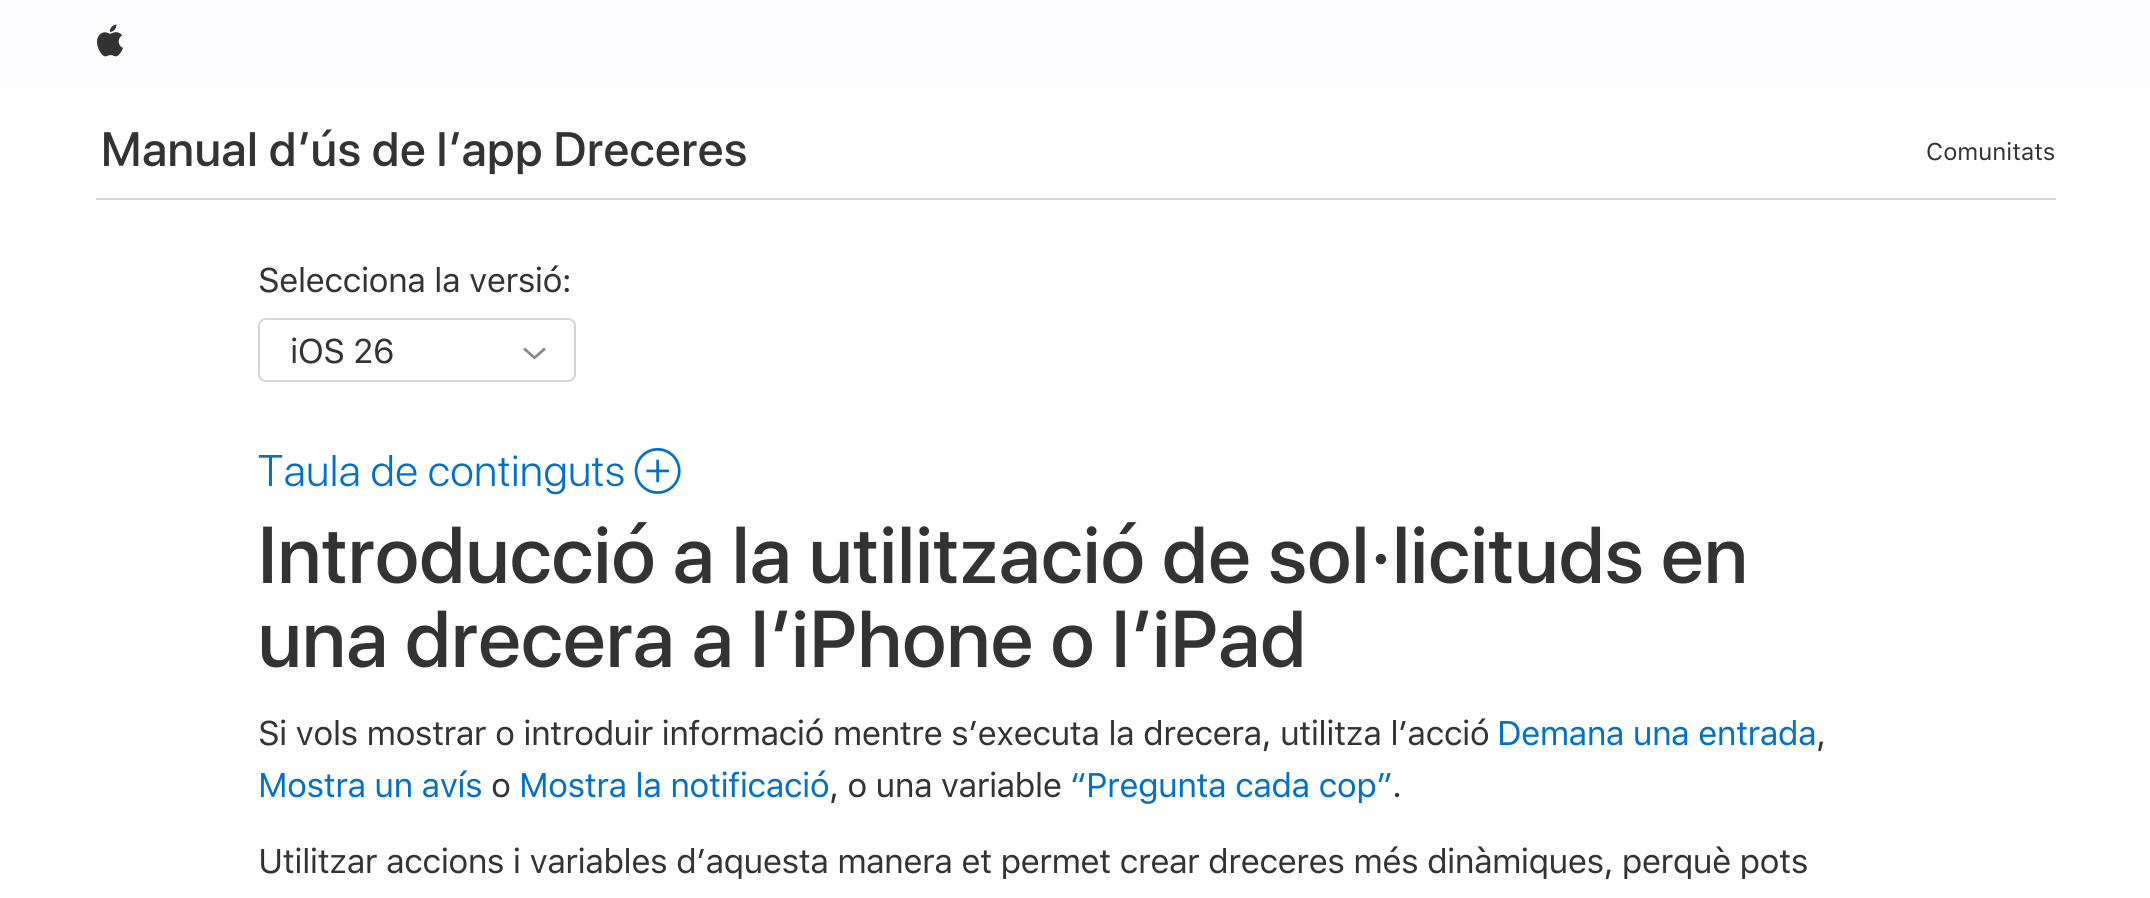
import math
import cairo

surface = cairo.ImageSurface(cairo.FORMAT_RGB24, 2150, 898)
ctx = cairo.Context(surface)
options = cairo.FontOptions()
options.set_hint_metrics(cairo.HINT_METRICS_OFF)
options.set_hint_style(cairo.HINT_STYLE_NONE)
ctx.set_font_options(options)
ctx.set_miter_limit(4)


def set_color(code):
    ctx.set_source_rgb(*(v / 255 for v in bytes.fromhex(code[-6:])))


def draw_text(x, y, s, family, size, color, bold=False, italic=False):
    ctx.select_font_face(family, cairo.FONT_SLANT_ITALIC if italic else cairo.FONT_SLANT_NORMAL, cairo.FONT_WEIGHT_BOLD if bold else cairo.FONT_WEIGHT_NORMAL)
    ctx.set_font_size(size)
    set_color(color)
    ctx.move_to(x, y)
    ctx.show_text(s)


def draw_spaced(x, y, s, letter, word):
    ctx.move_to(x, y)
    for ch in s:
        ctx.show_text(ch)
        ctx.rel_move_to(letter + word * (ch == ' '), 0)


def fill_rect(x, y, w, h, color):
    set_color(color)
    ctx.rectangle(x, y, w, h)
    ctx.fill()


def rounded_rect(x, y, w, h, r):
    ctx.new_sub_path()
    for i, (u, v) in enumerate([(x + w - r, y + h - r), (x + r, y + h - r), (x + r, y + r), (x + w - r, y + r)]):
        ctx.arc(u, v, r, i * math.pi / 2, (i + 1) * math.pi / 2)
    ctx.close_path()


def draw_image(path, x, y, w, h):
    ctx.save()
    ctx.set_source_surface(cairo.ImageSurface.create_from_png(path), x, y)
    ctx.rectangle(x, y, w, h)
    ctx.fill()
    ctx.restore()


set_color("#ffffff")
ctx.paint()
fill_rect(0, 0, 2150, 88, "#fbfbfd")
draw_image("assets/img1.png", 97, 24, 26, 33)
ctx.select_font_face("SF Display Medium")
ctx.set_font_size(48)
set_color("#333333")
draw_spaced(101, 166, "Manual d’ús de l’app Dreceres", 0.75, 0)
draw_text(1926, 160, "Comunitats", "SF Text", 24, "#333333")
fill_rect(96, 198, 1960, 2, "#d6d6d6")
ctx.set_font_size(34)
set_color("#333333")
draw_spaced(258, 292, "Selecciona la versió:", -0.7, 0)
rounded_rect(259, 319, 316, 62, 7)
set_color("#d6d6d6")
ctx.stroke()
set_color("#333333")
draw_spaced(290, 363, "iOS 26", -0.7, 0)
set_color("#888888")
ctx.new_path()
ctx.move_to(525, 347.5)
ctx.line_to(523, 349.5)
ctx.line_to(534.5, 359.5)
ctx.line_to(546, 349.5)
ctx.line_to(544, 347.5)
ctx.line_to(534.5, 356)
ctx.close_path()
ctx.fill()
ctx.select_font_face("SF Display Light")
ctx.set_font_size(44)
set_color("#0070c9")
draw_spaced(258, 486, "Taula de continguts", 0.75, 0)
draw_image("assets/img2.png", 634, 448, 47, 46)
ctx.select_font_face("SF Display Medium")
ctx.set_font_size(80)
set_color("#333333")
draw_spaced(258, 583, "Introducció a la utilització de sol·licituds en", 0.65, 0)
draw_spaced(258, 667, "una drecera a l’iPhone o l’iPad", 0.65, 0)
ctx.select_font_face("SF Text")
ctx.set_font_size(34)
draw_spaced(258, 745, "Si vols mostrar o introduir informació mentre s’executa la drecera, utilitza l’acció", -0.7, 0)
set_color("#0070c9")
draw_spaced(1497, 745, "Demana una entrada", -0.7, 0)
set_color("#333333")
draw_spaced(1816, 745, ",", -0.7, 0)
set_color("#0070c9")
draw_spaced(258, 797, "Mostra un avís", -0.7, 0)
set_color("#333333")
draw_spaced(491, 797, "o", -0.7, 0)
set_color("#0070c9")
draw_spaced(519, 797, "Mostra la notificació", -0.7, 0)
set_color("#333333")
draw_spaced(829, 797, ", o una variable", -0.7, 0)
set_color("#0070c9")
draw_spaced(1070, 797, "“Pregunta cada cop”", -0.7, 0)
set_color("#333333")
draw_spaced(1392, 797, ".", -0.7, 0)
draw_spaced(258, 873, "Utilitzar accions i variables d’aquesta manera et permet crear dreceres més dinàmiques, perquè pots", -0.7, 0)
surface.write_to_png("output.png")
